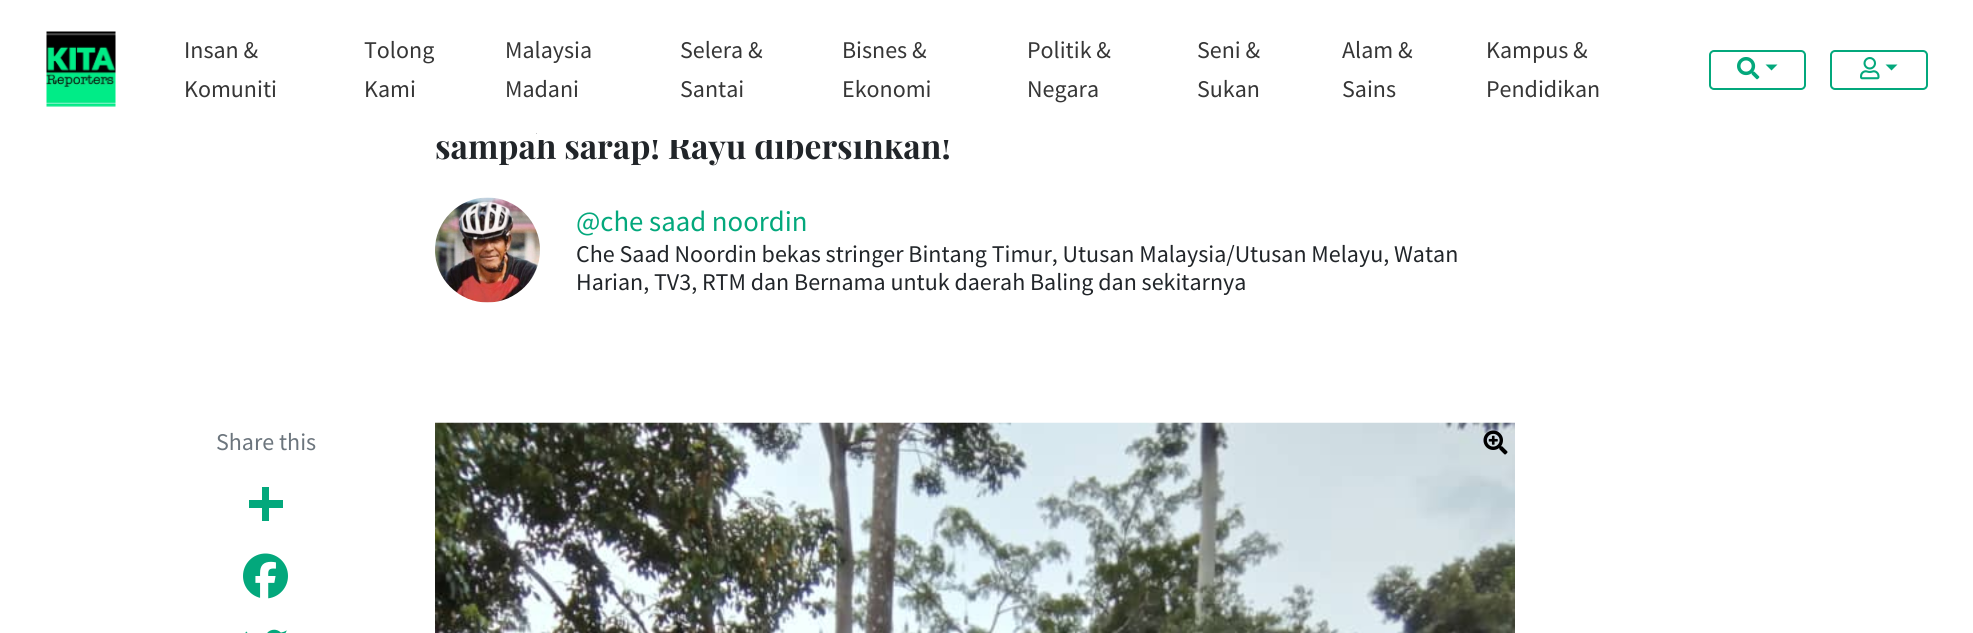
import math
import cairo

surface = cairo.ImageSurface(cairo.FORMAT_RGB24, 1973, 633)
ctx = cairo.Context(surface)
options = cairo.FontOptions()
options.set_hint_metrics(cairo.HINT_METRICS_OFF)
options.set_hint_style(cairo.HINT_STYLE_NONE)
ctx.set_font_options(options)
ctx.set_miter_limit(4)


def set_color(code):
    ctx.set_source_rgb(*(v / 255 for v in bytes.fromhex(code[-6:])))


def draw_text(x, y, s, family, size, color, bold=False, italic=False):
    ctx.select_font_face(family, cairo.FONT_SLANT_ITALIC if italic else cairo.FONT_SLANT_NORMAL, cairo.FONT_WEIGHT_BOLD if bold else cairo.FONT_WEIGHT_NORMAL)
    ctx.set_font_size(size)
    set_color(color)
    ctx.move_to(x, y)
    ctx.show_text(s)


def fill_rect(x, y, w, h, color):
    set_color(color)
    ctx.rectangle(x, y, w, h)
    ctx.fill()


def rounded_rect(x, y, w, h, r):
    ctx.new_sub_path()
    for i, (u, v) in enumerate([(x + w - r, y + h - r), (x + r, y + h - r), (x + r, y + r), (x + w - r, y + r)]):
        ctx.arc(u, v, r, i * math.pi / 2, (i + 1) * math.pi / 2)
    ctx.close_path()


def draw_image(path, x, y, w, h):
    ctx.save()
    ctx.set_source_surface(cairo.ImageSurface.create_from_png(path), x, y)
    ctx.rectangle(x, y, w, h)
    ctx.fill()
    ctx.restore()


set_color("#ffffff")
ctx.paint()
draw_text(435, 159, "sampah sarap! Rayu dibersihkan!", "Playfair Display", 33.6, "#212529", bold=True)
fill_rect(537, 132, 413, 8, "#ffffff")
draw_image("assets/img1.png", 46, 31, 70, 76)
draw_text(184, 58, "Insan &", "Source Sans Pro", 24, "#363636")
draw_text(184, 97, "Komuniti", "Source Sans Pro", 24, "#363636")
draw_text(364, 58, "Tolong", "Source Sans Pro", 24, "#363636")
draw_text(364, 97, "Kami", "Source Sans Pro", 24, "#363636")
draw_text(505, 58, "Malaysia", "Source Sans Pro", 24, "#363636")
draw_text(505, 97, "Madani", "Source Sans Pro", 24, "#363636")
draw_text(680, 58, "Selera &", "Source Sans Pro", 24, "#363636")
draw_text(680, 97, "Santai", "Source Sans Pro", 24, "#363636")
draw_text(842, 58, "Bisnes &", "Source Sans Pro", 24, "#363636")
draw_text(842, 97, "Ekonomi", "Source Sans Pro", 24, "#363636")
draw_text(1027, 58, "Politik &", "Source Sans Pro", 24, "#363636")
draw_text(1027, 97, "Negara", "Source Sans Pro", 24, "#363636")
draw_text(1197, 58, "Seni &", "Source Sans Pro", 24, "#363636")
draw_text(1197, 97, "Sukan", "Source Sans Pro", 24, "#363636")
draw_text(1342, 58, "Alam &", "Source Sans Pro", 24, "#363636")
draw_text(1342, 97, "Sains", "Source Sans Pro", 24, "#363636")
draw_text(1486, 58, "Kampus &", "Source Sans Pro", 24, "#363636")
draw_text(1486, 97, "Pendidikan", "Source Sans Pro", 24, "#363636")
rounded_rect(1710, 51, 95, 38, 4)
set_color("#03a87c")
ctx.stroke()
draw_image("assets/img2.png", 1737, 57, 23, 23)
ctx.new_path()
ctx.move_to(1765.5, 64.5)
ctx.line_to(1777.5, 64.5)
ctx.line_to(1771.5, 70.5)
ctx.close_path()
ctx.fill()
rounded_rect(1831, 51, 96, 38, 4)
ctx.stroke()
draw_image("assets/img3.png", 1860, 57, 20, 23)
ctx.new_path()
ctx.move_to(1885.5, 64.5)
ctx.line_to(1897.5, 64.5)
ctx.line_to(1891.5, 70.5)
ctx.close_path()
ctx.fill()
draw_image("assets/img4.png", 435, 197, 105, 106)
draw_text(576, 231, "@che saad noordin", "Source Sans Pro", 28.75, "#03a87c")
draw_text(576, 262, "Che Saad Noordin bekas stringer Bintang Timur, Utusan Malaysia/Utusan Melayu, Watan", "Source Sans Pro", 24, "#212529")
draw_text(576, 290, "Harian, TV3, RTM dan Bernama untuk daerah Baling dan sekitarnya", "Source Sans Pro", 24, "#212529")
draw_text(216, 450, "Share this", "Source Sans Pro", 24, "#6c757d")
fill_rect(262, 487, 7, 34, "#03a87c")
fill_rect(249, 500, 34, 8, "#03a87c")
draw_image("assets/img5.png", 243, 553, 45, 46)
draw_image("assets/img6.png", 245, 629, 42, 4)
draw_image("assets/img7.png", 435, 422, 1080, 211)
draw_image("assets/img8.png", 1483, 430, 25, 25)
surface.write_to_png("output.png")
